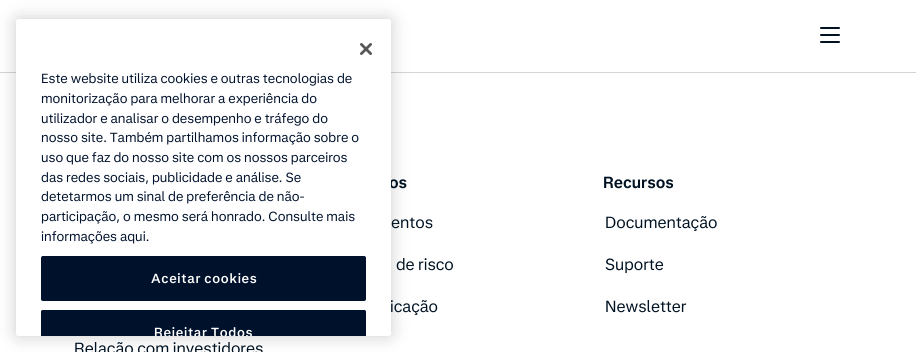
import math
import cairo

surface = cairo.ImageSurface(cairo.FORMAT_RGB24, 916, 352)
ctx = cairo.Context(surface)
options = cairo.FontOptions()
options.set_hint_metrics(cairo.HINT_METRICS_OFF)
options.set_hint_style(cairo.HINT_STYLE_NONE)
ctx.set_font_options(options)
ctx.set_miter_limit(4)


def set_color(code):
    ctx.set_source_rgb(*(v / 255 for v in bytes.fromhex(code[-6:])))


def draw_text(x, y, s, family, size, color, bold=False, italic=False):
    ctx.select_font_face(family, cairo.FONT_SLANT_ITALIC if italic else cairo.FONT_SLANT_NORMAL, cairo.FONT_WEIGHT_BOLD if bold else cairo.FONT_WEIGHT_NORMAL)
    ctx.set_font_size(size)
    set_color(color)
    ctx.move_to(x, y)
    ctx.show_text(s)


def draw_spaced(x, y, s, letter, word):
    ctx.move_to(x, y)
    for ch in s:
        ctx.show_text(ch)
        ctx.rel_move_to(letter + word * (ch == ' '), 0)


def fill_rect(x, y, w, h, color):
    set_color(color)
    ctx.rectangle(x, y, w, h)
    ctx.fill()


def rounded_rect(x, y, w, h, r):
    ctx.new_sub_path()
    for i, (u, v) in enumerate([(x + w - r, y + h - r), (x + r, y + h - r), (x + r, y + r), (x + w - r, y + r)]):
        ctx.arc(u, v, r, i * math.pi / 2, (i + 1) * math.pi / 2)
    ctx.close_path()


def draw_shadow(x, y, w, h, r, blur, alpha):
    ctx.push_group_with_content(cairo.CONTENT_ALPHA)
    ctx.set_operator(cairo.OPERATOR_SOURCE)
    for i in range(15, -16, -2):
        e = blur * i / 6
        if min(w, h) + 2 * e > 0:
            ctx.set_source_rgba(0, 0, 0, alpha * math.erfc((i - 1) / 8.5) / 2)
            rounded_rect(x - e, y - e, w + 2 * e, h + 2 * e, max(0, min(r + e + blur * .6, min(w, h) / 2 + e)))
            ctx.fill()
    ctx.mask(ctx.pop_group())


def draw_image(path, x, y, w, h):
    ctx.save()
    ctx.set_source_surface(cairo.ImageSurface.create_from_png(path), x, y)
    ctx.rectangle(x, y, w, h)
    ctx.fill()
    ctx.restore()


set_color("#ffffff")
ctx.paint()
fill_rect(0, 72, 916, 1, "#d1d5d8")
set_color("#000000")
draw_shadow(16, 19, 375, 317, 2.5, 9, 0.2)
draw_text(389, 188, "os", "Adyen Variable", 16, "#001222", bold=True)
draw_text(390, 312, "icação", "Adyen Variable", 16, "#001222")
set_color("#ffffff")
rounded_rect(16, 19, 375, 317, 2.5)
ctx.fill()
draw_image("assets/img1.png", 360, 43, 12, 12)
draw_text(41, 83, "Este website utiliza cookies e outras tecnologias de", "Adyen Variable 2", 13.1, "#00112c")
draw_text(41, 103, "monitorização para melhorar a experiência do", "Adyen Variable 2", 13.1, "#00112c")
draw_text(41, 123, "utilizador e analisar o desempenho e tráfego do", "Adyen Variable 2", 13.1, "#00112c")
draw_text(41, 142, "nosso site. Também partilhamos informação sobre o", "Adyen Variable 2", 13.1, "#00112c")
draw_text(41, 162, "uso que faz do nosso site com os nossos parceiros", "Adyen Variable 2", 13.1, "#00112c")
draw_text(41, 182, "das redes sociais, publicidade e análise. Se", "Adyen Variable 2", 13.1, "#00112c")
draw_text(41, 201, "detetarmos um sinal de preferência de não-", "Adyen Variable 2", 13.1, "#00112c")
draw_text(41, 221, "participação, o mesmo será honrado. Consulte mais", "Adyen Variable 2", 13.1, "#00112c")
draw_text(41, 241, "informações aqui.", "Adyen Variable 2", 13.1, "#00112c")
rounded_rect(41.5, 256.5, 324, 44, 1.5)
ctx.fill_preserve()
ctx.set_line_width(1)
ctx.stroke()
ctx.select_font_face("Adyen Variable SemiBold")
set_color("#ffffff")
draw_spaced(151, 283, "Aceitar cookies", 0.7, 0)
set_color("#00112c")
ctx.new_path()
ctx.move_to(43, 310)
ctx.line_to(364, 310)
ctx.curve_to(365, 310, 366, 311, 366, 312)
ctx.line_to(366, 336)
ctx.line_to(41, 336)
ctx.line_to(41, 312)
ctx.curve_to(41, 311, 42, 310, 43, 310)
ctx.close_path()
ctx.fill()
ctx.new_path()
ctx.move_to(43, 310)
ctx.curve_to(42, 310, 41, 311, 41, 312)
ctx.line_to(41, 336)
ctx.line_to(42, 336)
ctx.line_to(42, 312)
ctx.curve_to(42, 311, 42, 311, 43, 311)
ctx.line_to(364, 311)
ctx.curve_to(365, 311, 365, 311, 365, 312)
ctx.line_to(365, 336)
ctx.line_to(366, 336)
ctx.line_to(366, 312)
ctx.curve_to(366, 311, 365, 310, 364, 310)
ctx.close_path()
ctx.fill()
ctx.save()
rounded_rect(16, 19, 375, 317, 2.5)
ctx.clip()
set_color("#ffffff")
draw_spaced(154, 337, "Rejeitar Todos", 0.7, 0)
ctx.restore()
ctx.new_path()
ctx.move_to(821, 28)
ctx.line_to(839, 28)
ctx.move_to(821, 35)
ctx.line_to(839, 35)
ctx.move_to(821, 42)
ctx.line_to(839, 42)
set_color("#001222")
ctx.set_line_width(2)
ctx.set_line_cap(cairo.LINE_CAP_ROUND)
ctx.set_line_join(cairo.LINE_JOIN_ROUND)
ctx.stroke()
draw_text(391, 228, "entos", "Adyen Variable", 16, "#001222")
draw_text(396, 270, "de risco", "Adyen Variable", 16, "#001222")
draw_text(603, 188, "Recursos", "Adyen Variable", 16, "#001222", bold=True)
draw_text(605, 228, "Documentação", "Adyen Variable", 16, "#001222")
draw_text(605, 270, "Suporte", "Adyen Variable", 16, "#001222")
draw_text(605, 312, "Newsletter", "Adyen Variable", 16, "#001222")
draw_text(74, 354, "Relação com investidores", "Adyen Variable", 16, "#001222")
surface.write_to_png("output.png")
